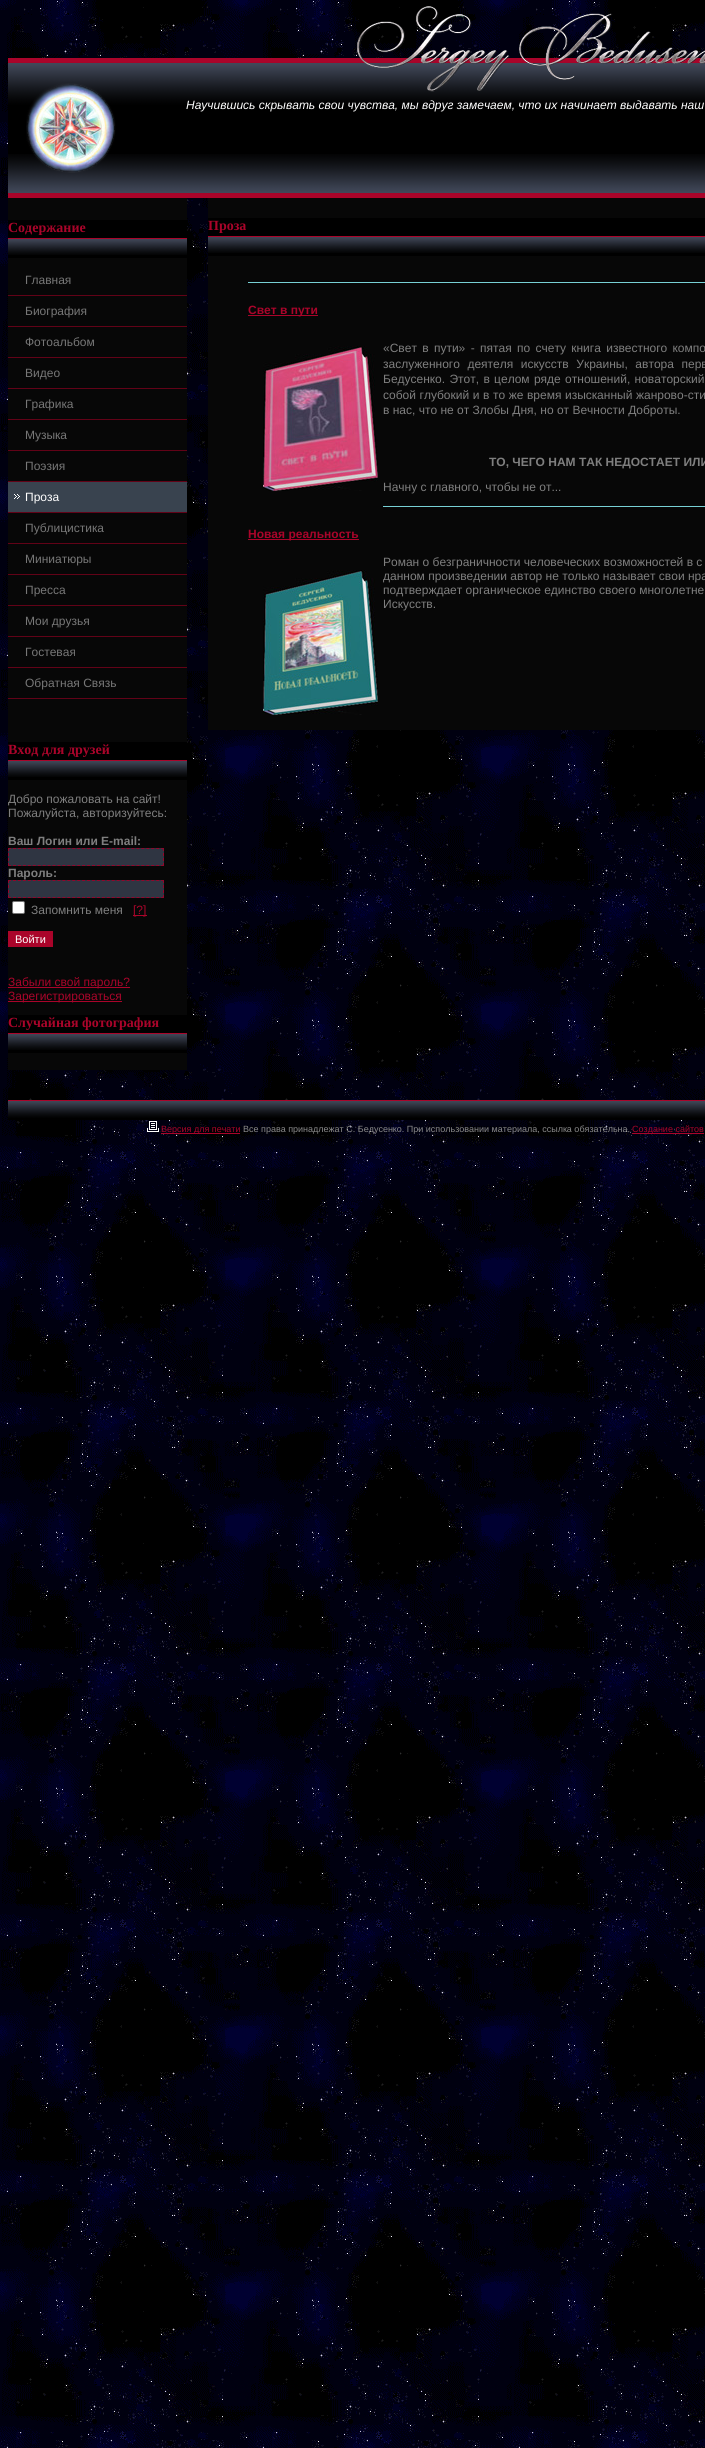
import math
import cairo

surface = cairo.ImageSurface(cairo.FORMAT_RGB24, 705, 2448)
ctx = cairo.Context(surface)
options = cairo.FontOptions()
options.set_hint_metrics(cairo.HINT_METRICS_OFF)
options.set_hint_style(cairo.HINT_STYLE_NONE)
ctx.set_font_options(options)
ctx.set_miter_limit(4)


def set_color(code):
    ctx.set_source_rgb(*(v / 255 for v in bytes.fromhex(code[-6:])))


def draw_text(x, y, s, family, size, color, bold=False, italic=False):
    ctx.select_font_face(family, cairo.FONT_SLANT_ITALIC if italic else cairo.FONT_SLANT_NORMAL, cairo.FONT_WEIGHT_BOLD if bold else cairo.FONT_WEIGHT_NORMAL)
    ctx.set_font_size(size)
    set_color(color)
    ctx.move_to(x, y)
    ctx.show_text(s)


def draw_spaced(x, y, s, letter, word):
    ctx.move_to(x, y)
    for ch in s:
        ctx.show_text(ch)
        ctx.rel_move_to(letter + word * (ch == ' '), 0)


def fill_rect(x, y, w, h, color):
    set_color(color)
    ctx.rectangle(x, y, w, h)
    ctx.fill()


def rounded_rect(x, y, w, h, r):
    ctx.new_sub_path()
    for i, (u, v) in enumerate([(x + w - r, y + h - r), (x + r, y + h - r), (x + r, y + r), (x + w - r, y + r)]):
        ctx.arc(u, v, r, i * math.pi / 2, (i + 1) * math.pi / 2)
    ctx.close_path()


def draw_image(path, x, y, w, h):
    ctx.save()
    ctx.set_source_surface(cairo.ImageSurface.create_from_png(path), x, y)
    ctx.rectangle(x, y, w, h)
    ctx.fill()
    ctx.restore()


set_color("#ffffff")
ctx.paint()
draw_image("assets/img1.png", 0, 0, 705, 2448)
draw_image("assets/img2.png", 8, 58, 697, 50)
draw_image("assets/img3.png", 357, 6, 348, 86)
fill_rect(8, 108, 697, 46, "#000000")
draw_image("assets/img5.png", 8, 154, 697, 44)
draw_image("assets/img4.png", 26, 83, 90, 90)
draw_text(186, 109, "Научившись скрывать свои чувства, мы вдруг замечаем, что их начинает выдавать наш", "Liberation Sans", 12, "#ffffff", italic=True)
fill_rect(8, 198, 179, 872, "#070707")
fill_rect(8, 220, 179, 38, "#000000")
draw_image("assets/img6.png", 8, 238, 179, 17)
draw_text(8, 232, "Cодержание", "Liberation Serif", 14, "#aa042a", bold=True)
fill_rect(8, 295, 179, 1, "#620217")
draw_text(25, 284, "Главная", "Liberation Sans", 12, "#777777")
fill_rect(8, 326, 179, 1, "#620217")
draw_text(25, 315, "Биография", "Liberation Sans", 12, "#777777")
fill_rect(8, 357, 179, 1, "#620217")
draw_text(25, 346, "Фотоальбом", "Liberation Sans", 12, "#777777")
fill_rect(8, 388, 179, 1, "#620217")
draw_text(25, 377, "Видео", "Liberation Sans", 12, "#777777")
fill_rect(8, 419, 179, 1, "#620217")
draw_text(25, 408, "Графика", "Liberation Sans", 12, "#777777")
fill_rect(8, 450, 179, 1, "#620217")
draw_text(25, 439, "Музыка", "Liberation Sans", 12, "#777777")
fill_rect(8, 481, 179, 1, "#620217")
draw_text(25, 470, "Поэзия", "Liberation Sans", 12, "#777777")
fill_rect(8, 482, 179, 30, "#39434f")
draw_image("assets/img7.png", 14, 494, 6, 5)
fill_rect(8, 512, 179, 1, "#620217")
draw_text(25, 501, "Проза", "Liberation Sans", 12, "#ffffff")
fill_rect(8, 543, 179, 1, "#620217")
draw_text(25, 532, "Публицистика", "Liberation Sans", 12, "#777777")
fill_rect(8, 574, 179, 1, "#620217")
draw_text(25, 563, "Миниатюры", "Liberation Sans", 12, "#777777")
fill_rect(8, 605, 179, 1, "#620217")
draw_text(25, 594, "Пресса", "Liberation Sans", 12, "#777777")
fill_rect(8, 636, 179, 1, "#620217")
draw_text(25, 625, "Мои друзья", "Liberation Sans", 12, "#777777")
fill_rect(8, 667, 179, 1, "#620217")
draw_text(25, 656, "Гостевая", "Liberation Sans", 12, "#777777")
fill_rect(8, 698, 179, 1, "#620217")
draw_text(25, 687, "Обратная Связь", "Liberation Sans", 12, "#777777")
fill_rect(8, 742, 179, 38, "#000000")
draw_image("assets/img6.png", 8, 760, 179, 17)
draw_text(8, 754, "Вход для друзей", "Liberation Serif", 14, "#aa042a", bold=True)
draw_text(8, 803, "Добро пожаловать на сайт!", "Liberation Sans", 12, "#7f7f7f")
draw_text(8, 817, "Пожалуйста, авторизуйтесь:", "Liberation Sans", 12, "#7f7f7f")
draw_text(8, 845, "Ваш Логин или E-mail:", "Liberation Sans", 12, "#7f7f7f", bold=True)
fill_rect(8, 848, 156, 18, "#2f3542")
ctx.new_path()
ctx.move_to(8, 848.5)
ctx.line_to(164, 848.5)
set_color("#93052b")
ctx.set_line_width(1)
ctx.set_dash([3, 1.94])
ctx.stroke()
ctx.new_path()
ctx.move_to(163.5, 848)
ctx.line_to(163.5, 866)
ctx.set_dash([3, 2])
ctx.stroke()
ctx.new_path()
ctx.move_to(8, 865.5)
ctx.line_to(164, 865.5)
ctx.set_dash([3, 1.94])
ctx.stroke()
ctx.new_path()
ctx.move_to(8.5, 848)
ctx.line_to(8.5, 866)
ctx.set_dash([3, 2])
ctx.stroke()
draw_text(8, 877, "Пароль:", "Liberation Sans", 12, "#7f7f7f", bold=True)
fill_rect(8, 880, 156, 18, "#2f3542")
ctx.new_path()
ctx.move_to(8, 880.5)
ctx.line_to(164, 880.5)
set_color("#93052b")
ctx.set_dash([3, 1.94])
ctx.stroke()
ctx.new_path()
ctx.move_to(163.5, 880)
ctx.line_to(163.5, 898)
ctx.set_dash([3, 2])
ctx.stroke()
ctx.new_path()
ctx.move_to(8, 897.5)
ctx.line_to(164, 897.5)
ctx.set_dash([3, 1.94])
ctx.stroke()
ctx.new_path()
ctx.move_to(8.5, 880)
ctx.line_to(8.5, 898)
ctx.set_dash([3, 2])
ctx.stroke()
set_color("#ffffff")
rounded_rect(12.5, 901.5, 12, 12, 1.5)
ctx.fill_preserve()
set_color("#767676")
ctx.set_dash([])
ctx.stroke()
draw_text(31, 914, "Запомнить меня", "Liberation Sans", 12, "#7f7f7f")
fill_rect(133, 915, 14, 1, "#aa042a")
draw_text(133, 914, "[?]", "Liberation Sans", 12, "#aa042a")
fill_rect(8, 931, 45, 16, "#aa042a")
draw_text(15, 943, "Войти", "Liberation Sans", 11, "#ffffff")
fill_rect(8, 987, 122, 1, "#aa042a")
draw_text(8, 986, "Забыли свой пароль?", "Liberation Sans", 12, "#aa042a")
fill_rect(8, 1001, 114, 1, "#aa042a")
draw_text(8, 1000, "Зарегистрироваться", "Liberation Sans", 12, "#aa042a")
fill_rect(8, 1015, 179, 38, "#000000")
draw_image("assets/img6.png", 8, 1033, 179, 17)
draw_text(8, 1027, "Случайная фотография", "Liberation Serif", 14, "#aa042a", bold=True)
fill_rect(208, 198, 497, 532, "#070707")
fill_rect(208, 218, 497, 38, "#000000")
draw_image("assets/img8.png", 208, 236, 497, 17)
draw_text(208, 230, "Проза", "Liberation Serif", 14, "#aa042a", bold=True)
fill_rect(248, 282, 457, 1, "#77d0d4")
fill_rect(248, 315, 70, 1, "#aa042a")
draw_text(248, 314, "Свет в пути", "Liberation Sans", 12, "#aa042a", bold=True)
draw_image("assets/img9.png", 263, 346, 115, 145)
ctx.select_font_face("Liberation Sans")
set_color("#7f7f7f")
draw_spaced(383, 352, "«Свет в пути» - пятая по счету книга известного компо", 0, 2)
draw_spaced(383, 368, "заслуженного деятеля искусств Украины, автора перв", 0, 4.25)
draw_spaced(383, 383, "Бедусенко. Этот, в целом ряде отношений, новаторский", 0, 1)
draw_spaced(383, 399, "собой глубокий и в то же время изысканный жанрово-сти", 0, 0.25)
draw_text(383, 414, "в нас, что не от Злобы Дня, но от Вечности Доброты.", "Liberation Sans", 12, "#7f7f7f")
draw_text(489, 466, "ТО, ЧЕГО НАМ ТАК НЕДОСТАЕТ ИЛИ", "Liberation Sans", 12, "#7f7f7f", bold=True)
draw_text(383, 491, "Начну с главного, чтобы не от...", "Liberation Sans", 12, "#7f7f7f")
fill_rect(383, 506, 322, 1, "#77d0d4")
fill_rect(248, 539, 111, 1, "#aa042a")
draw_text(248, 538, "Новая реальность", "Liberation Sans", 12, "#aa042a", bold=True)
draw_text(383, 566, "Роман о безграничности человеческих возможностей в с", "Liberation Sans", 12, "#7f7f7f")
draw_image("assets/img10.png", 263, 570, 115, 145)
draw_text(383, 580, "данном произведении автор не только называет свои нра", "Liberation Sans", 12, "#7f7f7f")
draw_text(383, 594, "подтверждает органическое единство своего многолетне", "Liberation Sans", 12, "#7f7f7f")
draw_text(383, 608, "Искусств.", "Liberation Sans", 12, "#7f7f7f")
draw_image("assets/img11.png", 8, 1100, 697, 20)
draw_image("assets/img12.png", 147, 1121, 12, 11)
fill_rect(161, 1133, 79, 1, "#aa042a")
draw_text(161, 1132, "Версия для печати", "Liberation Sans", 9, "#aa042a")
draw_text(243, 1132, "Все права принадлежат С. Бедусенко. При использовании материала, ссылка обязательна.", "Liberation Sans", 9, "#8a8a8a")
fill_rect(632, 1133, 72, 1, "#aa042a")
draw_text(632, 1132, "Cоздание сайтов", "Liberation Sans", 9, "#aa042a")
surface.write_to_png("output.png")
